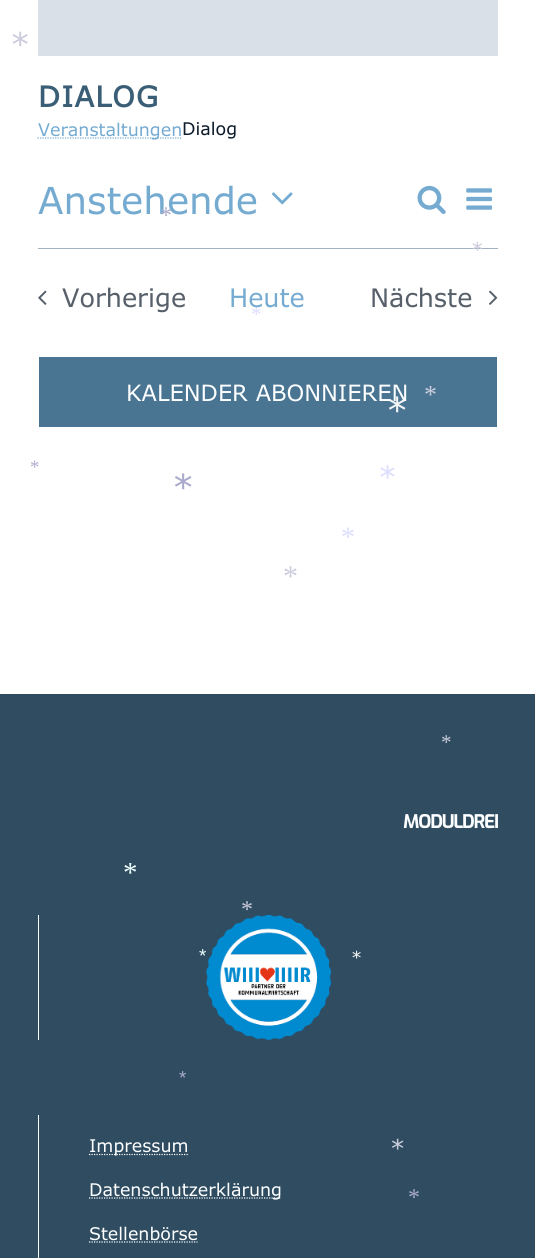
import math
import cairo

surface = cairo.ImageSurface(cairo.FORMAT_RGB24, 535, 1258)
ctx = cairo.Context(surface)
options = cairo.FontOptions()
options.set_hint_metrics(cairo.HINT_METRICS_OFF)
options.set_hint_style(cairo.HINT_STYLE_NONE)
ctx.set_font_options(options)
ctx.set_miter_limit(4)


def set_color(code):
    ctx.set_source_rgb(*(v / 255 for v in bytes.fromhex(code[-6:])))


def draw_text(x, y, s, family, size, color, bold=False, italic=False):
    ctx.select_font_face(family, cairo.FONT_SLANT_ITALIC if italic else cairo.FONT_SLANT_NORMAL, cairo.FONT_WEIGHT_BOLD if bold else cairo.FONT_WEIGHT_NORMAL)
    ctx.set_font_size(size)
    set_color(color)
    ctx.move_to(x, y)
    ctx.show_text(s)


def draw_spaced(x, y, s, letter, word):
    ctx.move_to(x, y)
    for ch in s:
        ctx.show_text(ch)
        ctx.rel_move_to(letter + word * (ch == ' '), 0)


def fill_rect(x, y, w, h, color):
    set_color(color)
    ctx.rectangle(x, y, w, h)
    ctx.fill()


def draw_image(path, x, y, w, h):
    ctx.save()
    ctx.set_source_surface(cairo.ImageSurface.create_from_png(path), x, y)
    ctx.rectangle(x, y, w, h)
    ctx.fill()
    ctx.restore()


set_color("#ffffff")
ctx.paint()
draw_text(10, 56, "*", "Verdana", 32, "#ccccdd")
draw_text(38, 214, "Anstehende", "Verdana", 37.25, "#75abd1")
draw_text(160, 223, "*", "Liberation Serif", 24, "#aaaacc")
fill_rect(38, 248, 460, 1, "#a0b2c2")
draw_text(471, 257, "*", "Verdana", 20, "#ccccdd")
draw_text(251, 321, "*", "Liberation Serif", 21, "#ddddff")
set_color("#497593")
ctx.rectangle(38.5, 356.5, 459, 71)
ctx.fill_preserve()
set_color("#fcfeff")
ctx.set_line_width(1)
ctx.stroke()
draw_text(424, 403, "*", "Liberation Serif", 26, "#ccccdd")
draw_text(386, 423, "*", "Verdana", 35, "#f3f3f3")
draw_text(30, 473, "*", "Liberation Serif", 18.75, "#aaaacc")
draw_text(172, 500, "*", "Verdana", 35, "#aaaacc")
draw_text(378, 488, "*", "Verdana", 30, "#ddddff")
draw_text(341, 546, "*", "Liberation Serif", 28, "#ddddff")
draw_text(283, 586, "*", "Liberation Serif", 30, "#ccccdd")
fill_rect(0, 694, 535, 564, "#2f4c60")
draw_text(441, 749, "*", "Liberation Serif", 21, "#ccccdd")
draw_text(123, 882, "*", "Liberation Serif", 29, "#f0ffff")
draw_text(241, 917, "*", "Liberation Serif", 24, "#ccccdd")
draw_image("assets/img6.png", 206, 915, 126, 125)
draw_text(199, 962, "*", "Liberation Sans", 18.75, "#f0ffff")
draw_text(351, 964, "*", "Verdana", 17.5, "#f3f3f3")
draw_text(179, 1084, "*", "Liberation Sans", 18.75, "#aaaacc")
draw_text(390, 1157, "*", "Verdana", 24, "#ccccdd")
draw_text(408, 1205, "*", "Liberation Serif", 24, "#aaaacc")
fill_rect(38, 0, 460, 56, "#d9e0e7")
ctx.select_font_face("Verdana", cairo.FONT_SLANT_NORMAL, cairo.FONT_WEIGHT_BOLD)
ctx.set_font_size(28.5)
set_color("#3a5e76")
draw_spaced(38, 107, "DIALOG", 1.25, 0)
ctx.new_path()
ctx.move_to(37.5, 138)
ctx.line_to(181.5, 138)
set_color("#75abd1")
ctx.set_line_width(1.2)
ctx.set_dash([1.25, 1.25])
ctx.stroke()
draw_text(38, 136, "Veranstaltungen", "Verdana", 17.5, "#75abd1")
draw_text(182, 135, "Dialog", "Verdana", 17.5, "#0d1b2a")
draw_image("assets/img1.png", 271, 192, 22, 13)
draw_image("assets/img2.png", 417, 185, 29, 29)
draw_image("assets/img3.png", 466, 188, 26, 22)
draw_image("assets/img4.png", 38, 290, 9, 15)
draw_text(62, 307, "Vorherige", "Verdana", 25.5, "#565f6a")
draw_text(229, 307, "Heute", "Verdana", 25.5, "#75abd1")
draw_text(370, 307, "Nächste", "Verdana", 25.5, "#565f6a")
draw_image("assets/img5.png", 489, 290, 9, 15)
draw_text(126, 401, "KALENDER ABONNIEREN", "Verdana", 22.5, "#fcfeff")
ctx.select_font_face("Exo", cairo.FONT_SLANT_NORMAL, cairo.FONT_WEIGHT_BOLD)
ctx.set_font_size(18.75)
draw_spaced(403, 828, "MODULDREI", -1.25, 0)
fill_rect(38, 915, 1, 125, "#fcfeff")
fill_rect(38, 1115, 1, 143, "#fcfeff")
ctx.new_path()
ctx.move_to(89, 1154.5)
ctx.line_to(188.5, 1154.5)
ctx.stroke()
draw_text(89, 1152, "Impressum", "Verdana", 17.5, "#fcfeff")
ctx.new_path()
ctx.move_to(89, 1198)
ctx.line_to(281.5, 1198)
ctx.stroke()
draw_text(89, 1196, "Datenschutzerklärung", "Verdana", 17.5, "#fcfeff")
draw_text(89, 1240, "Stellenbörse", "Verdana", 17.5, "#fcfeff")
ctx.new_path()
ctx.move_to(89, 1242)
ctx.line_to(197.5, 1242)
ctx.stroke()
surface.write_to_png("output.png")
